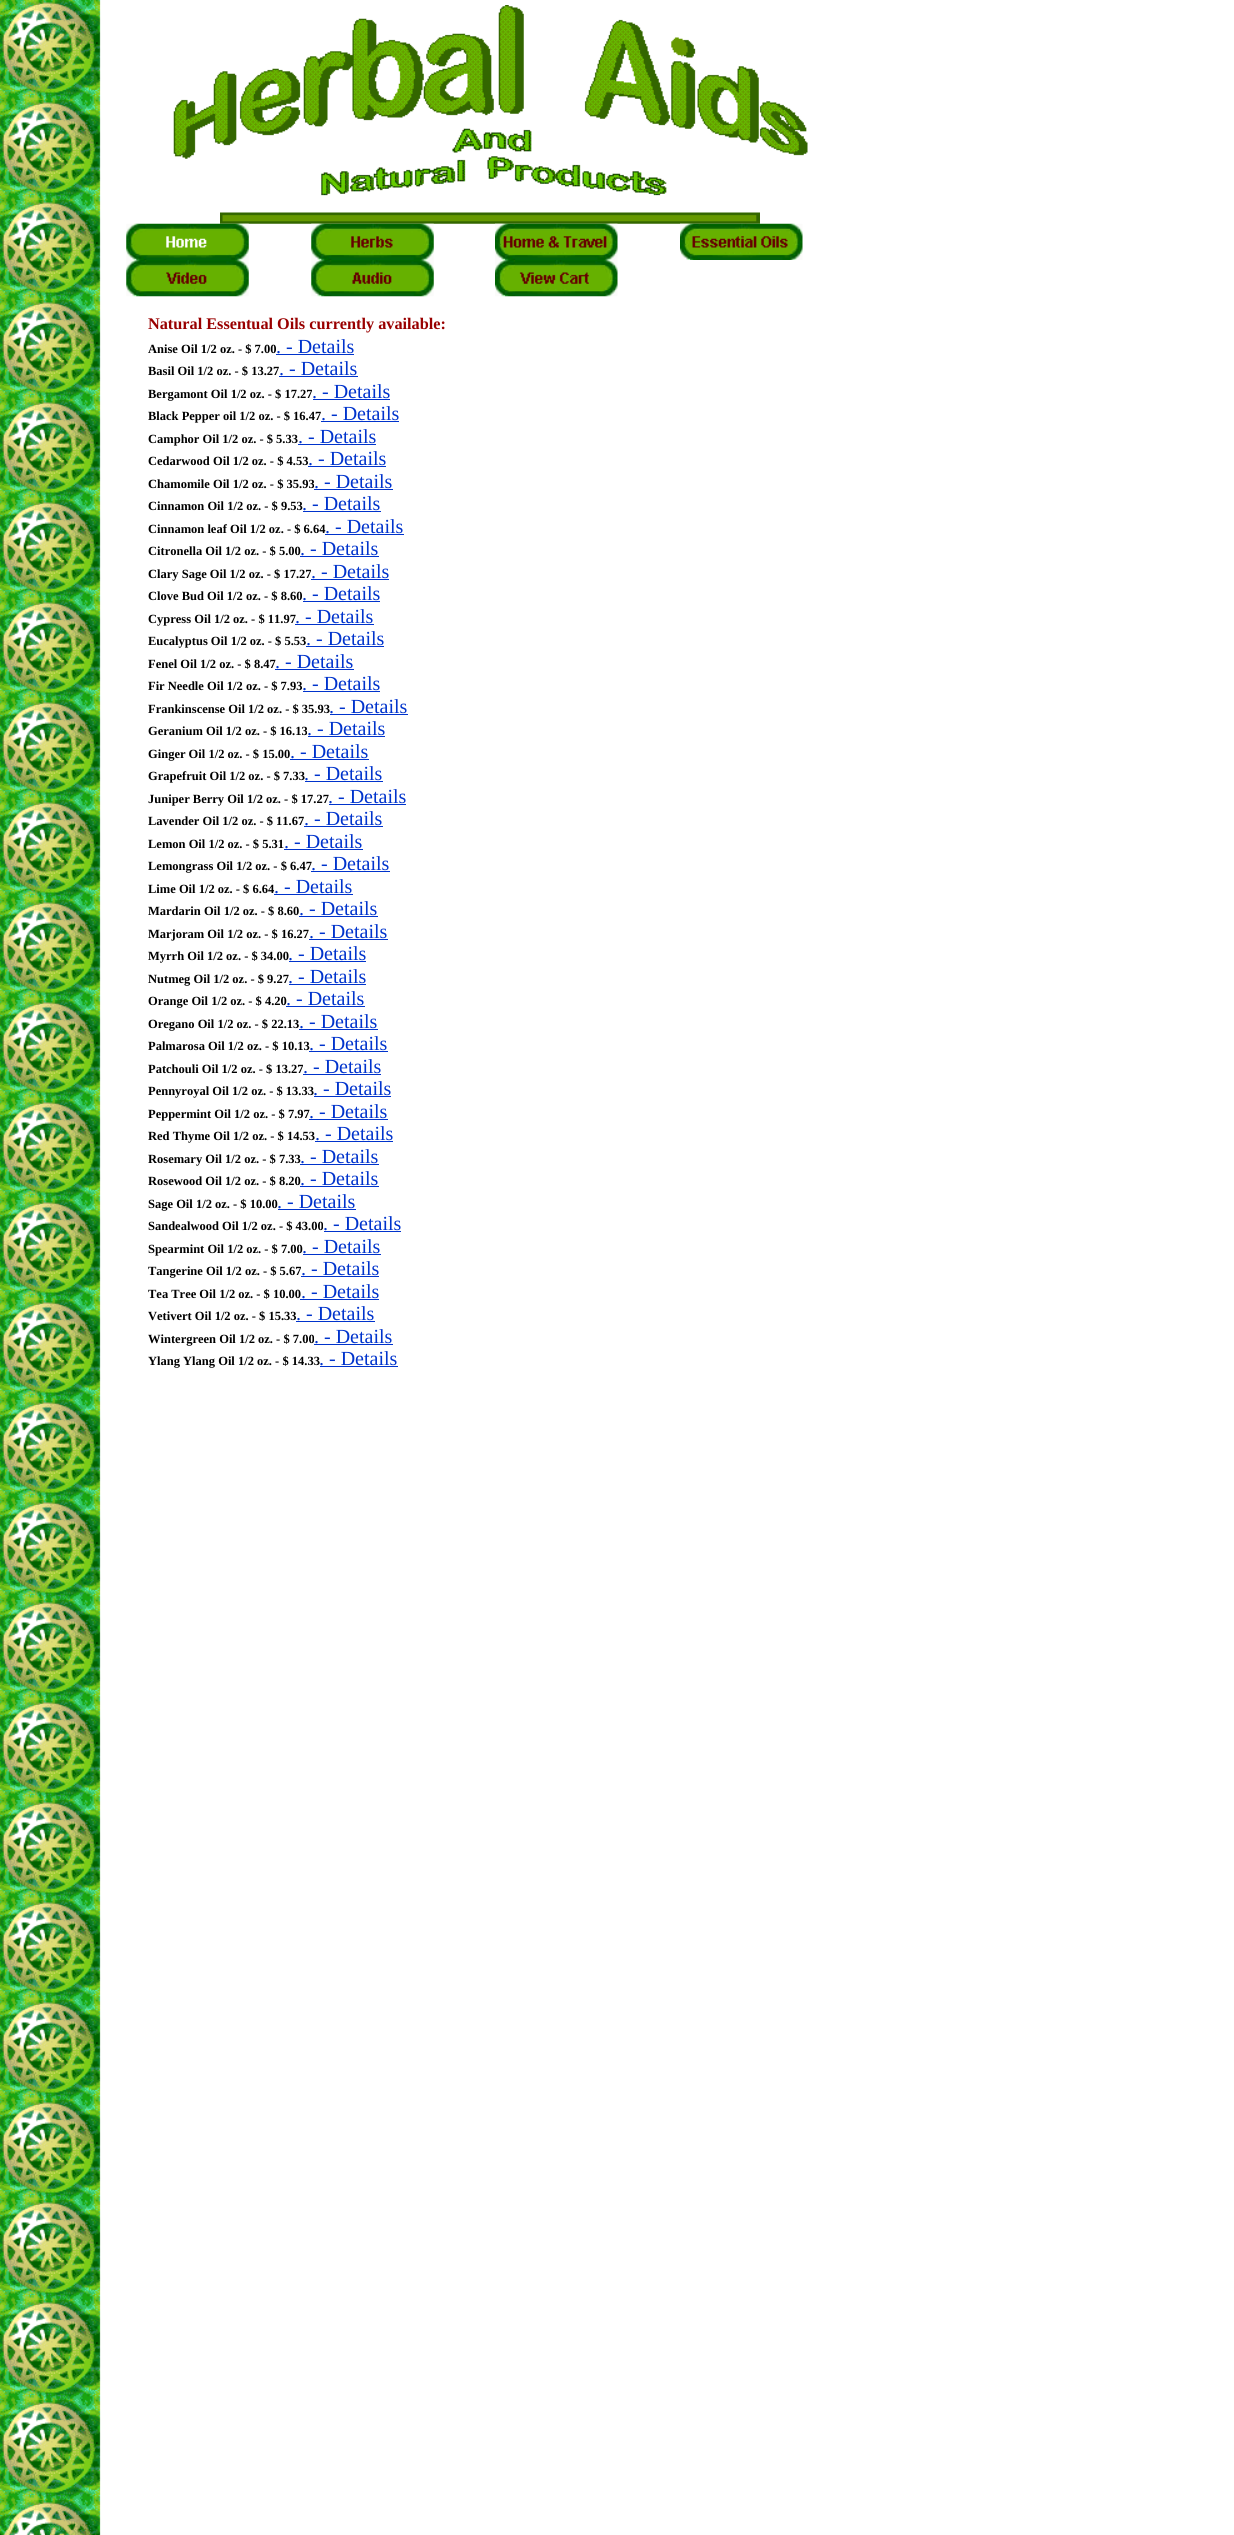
import math
import cairo

surface = cairo.ImageSurface(cairo.FORMAT_RGB24, 1234, 2535)
ctx = cairo.Context(surface)
options = cairo.FontOptions()
options.set_hint_metrics(cairo.HINT_METRICS_OFF)
options.set_hint_style(cairo.HINT_STYLE_NONE)
ctx.set_font_options(options)
ctx.set_miter_limit(4)


def set_color(code):
    ctx.set_source_rgb(*(v / 255 for v in bytes.fromhex(code[-6:])))


def draw_text(x, y, s, family, size, color, bold=False, italic=False):
    ctx.select_font_face(family, cairo.FONT_SLANT_ITALIC if italic else cairo.FONT_SLANT_NORMAL, cairo.FONT_WEIGHT_BOLD if bold else cairo.FONT_WEIGHT_NORMAL)
    ctx.set_font_size(size)
    set_color(color)
    ctx.move_to(x, y)
    ctx.show_text(s)


def fill_rect(x, y, w, h, color):
    set_color(color)
    ctx.rectangle(x, y, w, h)
    ctx.fill()


def draw_image(path, x, y, w, h):
    ctx.save()
    ctx.set_source_surface(cairo.ImageSurface.create_from_png(path), x, y)
    ctx.rectangle(x, y, w, h)
    ctx.fill()
    ctx.restore()


set_color("#ffffff")
ctx.paint()
draw_image("assets/img1.png", 0, 0, 101, 2535)
draw_image("assets/img2.png", 173, 5, 635, 191)
draw_image("assets/img3.png", 220, 212, 540, 12)
draw_image("assets/img4.png", 126, 223, 123, 37)
draw_image("assets/img5.png", 311, 223, 123, 37)
draw_image("assets/img6.png", 495, 223, 123, 37)
draw_image("assets/img7.png", 680, 223, 123, 37)
draw_image("assets/img8.png", 126, 260, 123, 37)
draw_image("assets/img9.png", 311, 260, 123, 37)
draw_image("assets/img10.png", 495, 260, 123, 37)
draw_text(148, 329, "Natural Essentual Oils currently available:", "Liberation Serif", 16.25, "#990000", bold=True)
draw_text(148, 353, "Anise Oil 1/2 oz. - $ 7.00", "Liberation Serif", 12.5, "#000000", bold=True)
draw_text(276, 353, ". - Details", "Liberation Serif", 20, "#0033cc")
fill_rect(276, 354, 78, 1, "#0033cc")
draw_text(148, 375, "Basil Oil 1/2 oz. - $ 13.27", "Liberation Serif", 12.5, "#000000", bold=True)
draw_text(279, 375, ". - Details", "Liberation Serif", 20, "#0033cc")
fill_rect(279, 376, 79, 1, "#0033cc")
draw_text(148, 398, "Bergamont Oil 1/2 oz. - $ 17.27", "Liberation Serif", 12.5, "#000000", bold=True)
draw_text(312, 398, ". - Details", "Liberation Serif", 20, "#0033cc")
fill_rect(313, 399, 77, 1, "#0033cc")
draw_text(148, 420, "Black Pepper oil 1/2 oz. - $ 16.47", "Liberation Serif", 12.5, "#000000", bold=True)
draw_text(321, 420, ". - Details", "Liberation Serif", 20, "#0033cc")
fill_rect(321, 421, 78, 1, "#0033cc")
draw_text(148, 443, "Camphor Oil 1/2 oz. - $ 5.33", "Liberation Serif", 12.5, "#000000", bold=True)
draw_text(298, 443, ". - Details", "Liberation Serif", 20, "#0033cc")
fill_rect(298, 444, 78, 1, "#0033cc")
draw_text(148, 465, "Cedarwood Oil 1/2 oz. - $ 4.53", "Liberation Serif", 12.5, "#000000", bold=True)
draw_text(308, 465, ". - Details", "Liberation Serif", 20, "#0033cc")
fill_rect(308, 466, 78, 1, "#0033cc")
draw_text(148, 488, "Chamomile Oil 1/2 oz. - $ 35.93", "Liberation Serif", 12.5, "#000000", bold=True)
draw_text(314, 488, ". - Details", "Liberation Serif", 20, "#0033cc")
fill_rect(314, 489, 79, 1, "#0033cc")
draw_text(148, 510, "Cinnamon Oil 1/2 oz. - $ 9.53", "Liberation Serif", 12.5, "#000000", bold=True)
draw_text(302, 510, ". - Details", "Liberation Serif", 20, "#0033cc")
fill_rect(303, 511, 78, 1, "#0033cc")
draw_text(148, 533, "Cinnamon leaf Oil 1/2 oz. - $ 6.64", "Liberation Serif", 12.5, "#000000", bold=True)
draw_text(325, 533, ". - Details", "Liberation Serif", 20, "#0033cc")
fill_rect(325, 534, 79, 1, "#0033cc")
draw_text(148, 555, "Citronella Oil 1/2 oz. - $ 5.00", "Liberation Serif", 12.5, "#000000", bold=True)
draw_text(300, 555, ". - Details", "Liberation Serif", 20, "#0033cc")
fill_rect(300, 556, 79, 1, "#0033cc")
draw_text(148, 578, "Clary Sage Oil 1/2 oz. - $ 17.27", "Liberation Serif", 12.5, "#000000", bold=True)
draw_text(311, 578, ". - Details", "Liberation Serif", 20, "#0033cc")
fill_rect(311, 579, 78, 1, "#0033cc")
draw_text(148, 600, "Clove Bud Oil 1/2 oz. - $ 8.60", "Liberation Serif", 12.5, "#000000", bold=True)
draw_text(302, 600, ". - Details", "Liberation Serif", 20, "#0033cc")
fill_rect(303, 601, 77, 1, "#0033cc")
draw_text(148, 623, "Cypress Oil 1/2 oz. - $ 11.97", "Liberation Serif", 12.5, "#000000", bold=True)
draw_text(295, 623, ". - Details", "Liberation Serif", 20, "#0033cc")
fill_rect(295, 624, 79, 1, "#0033cc")
draw_text(148, 645, "Eucalyptus Oil 1/2 oz. - $ 5.53", "Liberation Serif", 12.5, "#000000", bold=True)
draw_text(306, 645, ". - Details", "Liberation Serif", 20, "#0033cc")
fill_rect(306, 646, 78, 1, "#0033cc")
draw_text(148, 668, "Fenel Oil 1/2 oz. - $ 8.47", "Liberation Serif", 12.5, "#000000", bold=True)
draw_text(275, 668, ". - Details", "Liberation Serif", 20, "#0033cc")
fill_rect(275, 669, 79, 1, "#0033cc")
draw_text(148, 690, "Fir Needle Oil 1/2 oz. - $ 7.93", "Liberation Serif", 12.5, "#000000", bold=True)
draw_text(302, 690, ". - Details", "Liberation Serif", 20, "#0033cc")
fill_rect(303, 691, 77, 1, "#0033cc")
draw_text(148, 713, "Frankinscense Oil 1/2 oz. - $ 35.93", "Liberation Serif", 12.5, "#000000", bold=True)
draw_text(329, 713, ". - Details", "Liberation Serif", 20, "#0033cc")
fill_rect(330, 714, 78, 1, "#0033cc")
draw_text(148, 735, "Geranium Oil 1/2 oz. - $ 16.13", "Liberation Serif", 12.5, "#000000", bold=True)
draw_text(307, 735, ". - Details", "Liberation Serif", 20, "#0033cc")
fill_rect(308, 736, 77, 1, "#0033cc")
draw_text(148, 758, "Ginger Oil 1/2 oz. - $ 15.00", "Liberation Serif", 12.5, "#000000", bold=True)
draw_text(290, 758, ". - Details", "Liberation Serif", 20, "#0033cc")
fill_rect(290, 759, 79, 1, "#0033cc")
draw_text(148, 780, "Grapefruit Oil 1/2 oz. - $ 7.33", "Liberation Serif", 12.5, "#000000", bold=True)
draw_text(304, 780, ". - Details", "Liberation Serif", 20, "#0033cc")
fill_rect(305, 781, 78, 1, "#0033cc")
draw_text(148, 803, "Juniper Berry Oil 1/2 oz. - $ 17.27", "Liberation Serif", 12.5, "#000000", bold=True)
draw_text(328, 803, ". - Details", "Liberation Serif", 20, "#0033cc")
fill_rect(329, 804, 77, 1, "#0033cc")
draw_text(148, 825, "Lavender Oil 1/2 oz. - $ 11.67", "Liberation Serif", 12.5, "#000000", bold=True)
draw_text(304, 825, ". - Details", "Liberation Serif", 20, "#0033cc")
fill_rect(304, 826, 79, 1, "#0033cc")
draw_text(148, 848, "Lemon Oil 1/2 oz. - $ 5.31", "Liberation Serif", 12.5, "#000000", bold=True)
draw_text(284, 848, ". - Details", "Liberation Serif", 20, "#0033cc")
fill_rect(284, 849, 79, 1, "#0033cc")
draw_text(148, 870, "Lemongrass Oil 1/2 oz. - $ 6.47", "Liberation Serif", 12.5, "#000000", bold=True)
draw_text(311, 870, ". - Details", "Liberation Serif", 20, "#0033cc")
fill_rect(311, 871, 79, 1, "#0033cc")
draw_text(148, 893, "Lime Oil 1/2 oz. - $ 6.64", "Liberation Serif", 12.5, "#000000", bold=True)
draw_text(274, 893, ". - Details", "Liberation Serif", 20, "#0033cc")
fill_rect(274, 894, 79, 1, "#0033cc")
draw_text(148, 915, "Mardarin Oil 1/2 oz. - $ 8.60", "Liberation Serif", 12.5, "#000000", bold=True)
draw_text(299, 915, ". - Details", "Liberation Serif", 20, "#0033cc")
fill_rect(299, 916, 79, 1, "#0033cc")
draw_text(148, 938, "Marjoram Oil 1/2 oz. - $ 16.27", "Liberation Serif", 12.5, "#000000", bold=True)
draw_text(309, 938, ". - Details", "Liberation Serif", 20, "#0033cc")
fill_rect(309, 939, 79, 1, "#0033cc")
draw_text(148, 960, "Myrrh Oil 1/2 oz. - $ 34.00", "Liberation Serif", 12.5, "#000000", bold=True)
draw_text(288, 960, ". - Details", "Liberation Serif", 20, "#0033cc")
fill_rect(289, 961, 77, 1, "#0033cc")
draw_text(148, 983, "Nutmeg Oil 1/2 oz. - $ 9.27", "Liberation Serif", 12.5, "#000000", bold=True)
draw_text(288, 983, ". - Details", "Liberation Serif", 20, "#0033cc")
fill_rect(289, 984, 77, 1, "#0033cc")
draw_text(148, 1005, "Orange Oil 1/2 oz. - $ 4.20", "Liberation Serif", 12.5, "#000000", bold=True)
draw_text(286, 1005, ". - Details", "Liberation Serif", 20, "#0033cc")
fill_rect(286, 1006, 79, 1, "#0033cc")
draw_text(148, 1028, "Oregano Oil 1/2 oz. - $ 22.13", "Liberation Serif", 12.5, "#000000", bold=True)
draw_text(299, 1028, ". - Details", "Liberation Serif", 20, "#0033cc")
fill_rect(299, 1029, 79, 1, "#0033cc")
draw_text(148, 1050, "Palmarosa Oil 1/2 oz. - $ 10.13", "Liberation Serif", 12.5, "#000000", bold=True)
draw_text(309, 1050, ". - Details", "Liberation Serif", 20, "#0033cc")
fill_rect(309, 1051, 79, 1, "#0033cc")
draw_text(148, 1073, "Patchouli Oil 1/2 oz. - $ 13.27", "Liberation Serif", 12.5, "#000000", bold=True)
draw_text(303, 1073, ". - Details", "Liberation Serif", 20, "#0033cc")
fill_rect(303, 1074, 78, 1, "#0033cc")
draw_text(148, 1095, "Pennyroyal Oil 1/2 oz. - $ 13.33", "Liberation Serif", 12.5, "#000000", bold=True)
draw_text(313, 1095, ". - Details", "Liberation Serif", 20, "#0033cc")
fill_rect(314, 1096, 77, 1, "#0033cc")
draw_text(148, 1118, "Peppermint Oil 1/2 oz. - $ 7.97", "Liberation Serif", 12.5, "#000000", bold=True)
draw_text(309, 1118, ". - Details", "Liberation Serif", 20, "#0033cc")
fill_rect(309, 1119, 79, 1, "#0033cc")
draw_text(148, 1140, "Red Thyme Oil 1/2 oz. - $ 14.53", "Liberation Serif", 12.5, "#000000", bold=True)
draw_text(315, 1140, ". - Details", "Liberation Serif", 20, "#0033cc")
fill_rect(315, 1141, 78, 1, "#0033cc")
draw_text(148, 1163, "Rosemary Oil 1/2 oz. - $ 7.33", "Liberation Serif", 12.5, "#000000", bold=True)
draw_text(300, 1163, ". - Details", "Liberation Serif", 20, "#0033cc")
fill_rect(300, 1164, 79, 1, "#0033cc")
draw_text(148, 1185, "Rosewood Oil 1/2 oz. - $ 8.20", "Liberation Serif", 12.5, "#000000", bold=True)
draw_text(300, 1185, ". - Details", "Liberation Serif", 20, "#0033cc")
fill_rect(300, 1186, 79, 1, "#0033cc")
draw_text(148, 1208, "Sage Oil 1/2 oz. - $ 10.00", "Liberation Serif", 12.5, "#000000", bold=True)
draw_text(277, 1208, ". - Details", "Liberation Serif", 20, "#0033cc")
fill_rect(278, 1209, 78, 1, "#0033cc")
draw_text(148, 1230, "Sandealwood Oil 1/2 oz. - $ 43.00", "Liberation Serif", 12.5, "#000000", bold=True)
draw_text(323, 1230, ". - Details", "Liberation Serif", 20, "#0033cc")
fill_rect(324, 1231, 77, 1, "#0033cc")
draw_text(148, 1253, "Spearmint Oil 1/2 oz. - $ 7.00", "Liberation Serif", 12.5, "#000000", bold=True)
draw_text(302, 1253, ". - Details", "Liberation Serif", 20, "#0033cc")
fill_rect(303, 1254, 78, 1, "#0033cc")
draw_text(148, 1275, "Tangerine Oil 1/2 oz. - $ 5.67", "Liberation Serif", 12.5, "#000000", bold=True)
draw_text(301, 1275, ". - Details", "Liberation Serif", 20, "#0033cc")
fill_rect(301, 1276, 78, 1, "#0033cc")
draw_text(148, 1298, "Tea Tree Oil 1/2 oz. - $ 10.00", "Liberation Serif", 12.5, "#000000", bold=True)
draw_text(301, 1298, ". - Details", "Liberation Serif", 20, "#0033cc")
fill_rect(300, 1299, 79, 1, "#0033cc")
draw_text(148, 1320, "Vetivert Oil 1/2 oz. - $ 15.33", "Liberation Serif", 12.5, "#000000", bold=True)
draw_text(296, 1320, ". - Details", "Liberation Serif", 20, "#0033cc")
fill_rect(296, 1321, 79, 1, "#0033cc")
draw_text(148, 1343, "Wintergreen Oil 1/2 oz. - $ 7.00", "Liberation Serif", 12.5, "#000000", bold=True)
draw_text(314, 1343, ". - Details", "Liberation Serif", 20, "#0033cc")
fill_rect(314, 1344, 79, 1, "#0033cc")
draw_text(148, 1365, "Ylang Ylang Oil 1/2 oz. - $ 14.33", "Liberation Serif", 12.5, "#000000", bold=True)
draw_text(319, 1365, ". - Details", "Liberation Serif", 20, "#0033cc")
fill_rect(320, 1366, 78, 1, "#0033cc")
surface.write_to_png("output.png")
